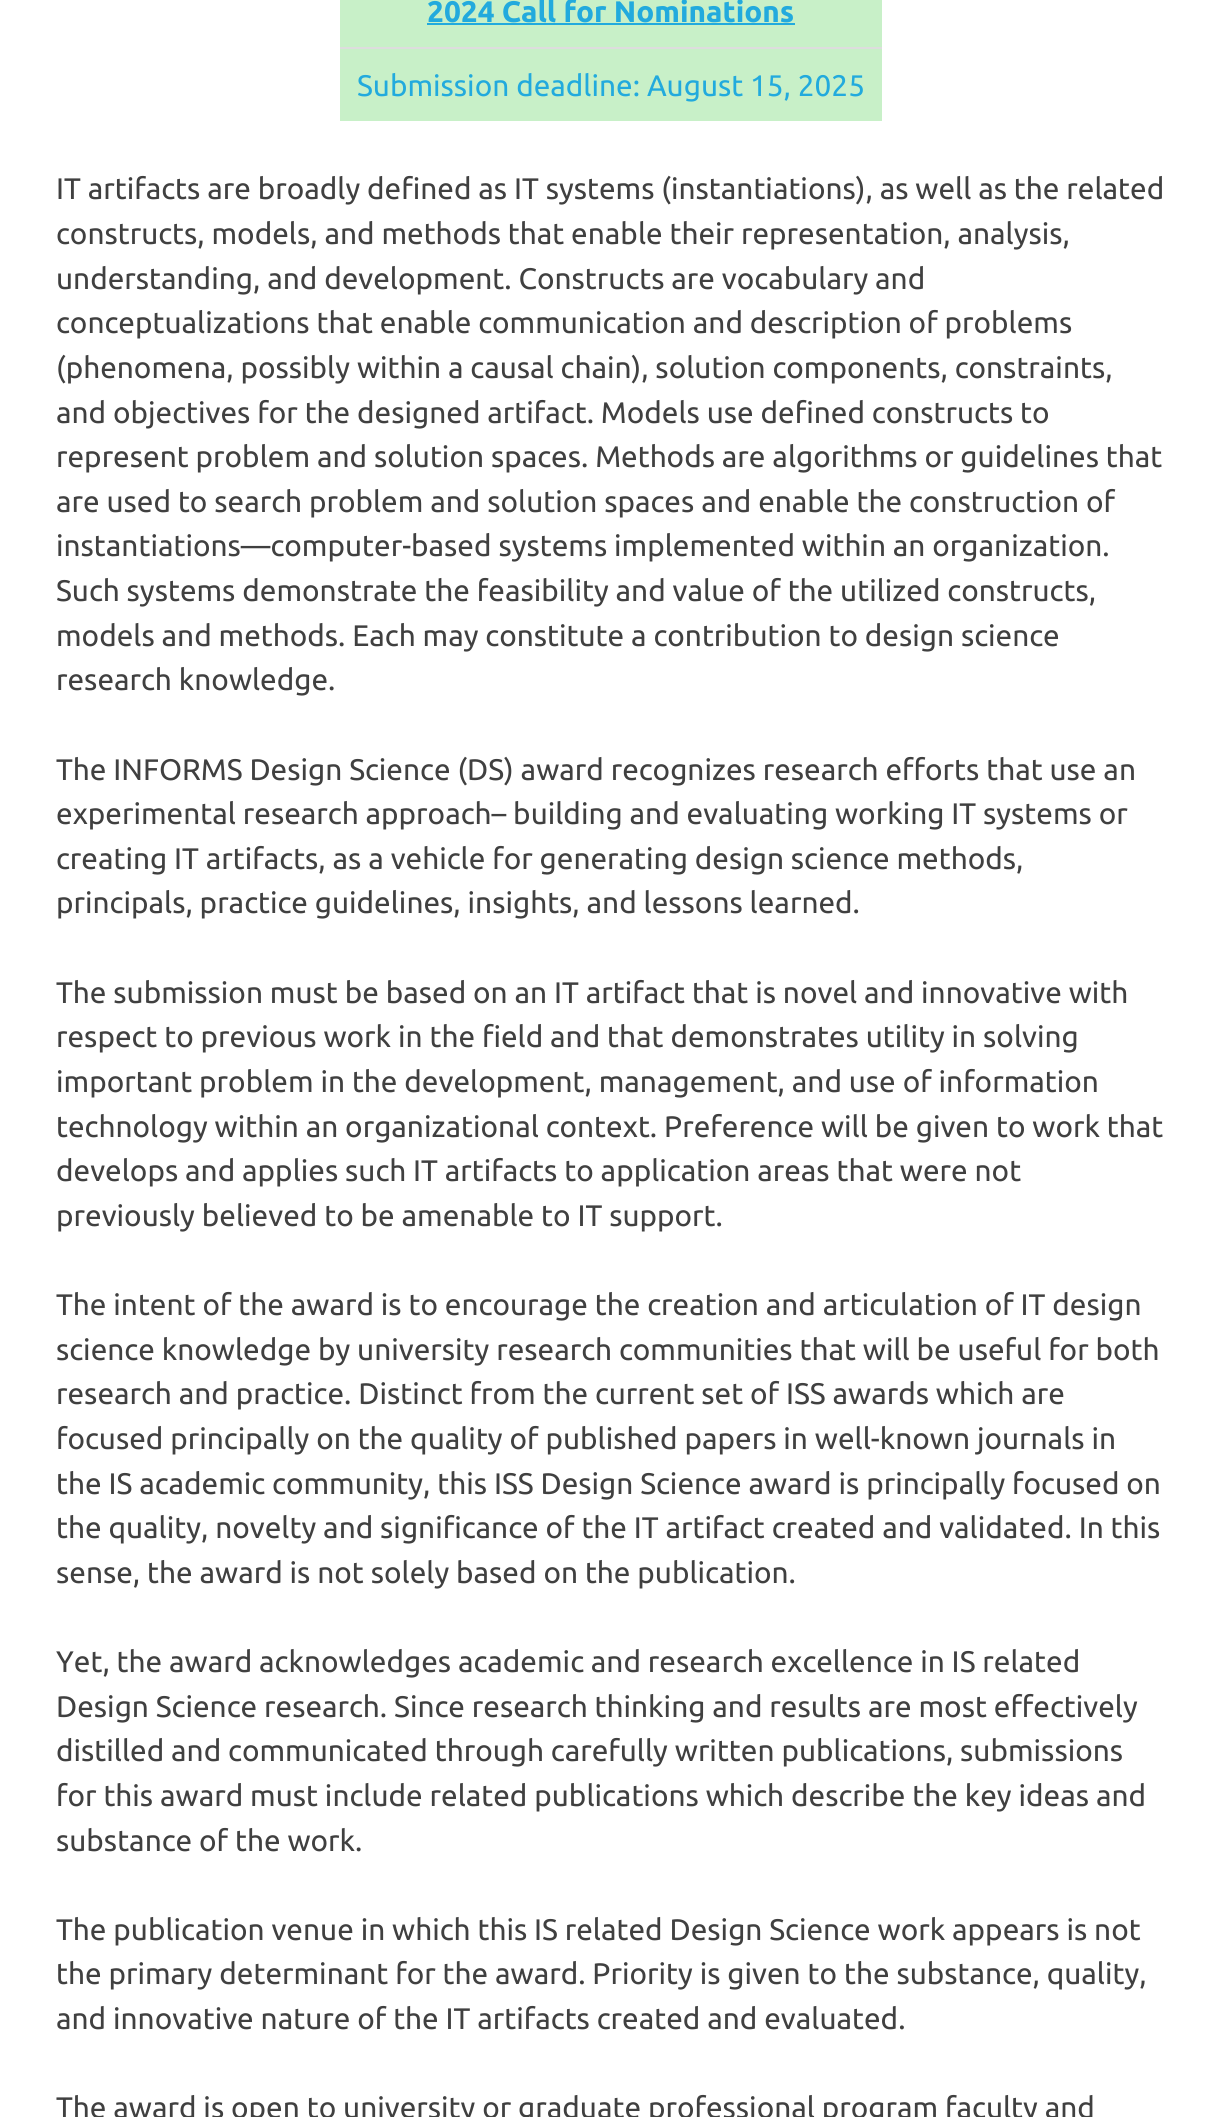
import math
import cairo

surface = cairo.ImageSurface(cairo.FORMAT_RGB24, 1221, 2117)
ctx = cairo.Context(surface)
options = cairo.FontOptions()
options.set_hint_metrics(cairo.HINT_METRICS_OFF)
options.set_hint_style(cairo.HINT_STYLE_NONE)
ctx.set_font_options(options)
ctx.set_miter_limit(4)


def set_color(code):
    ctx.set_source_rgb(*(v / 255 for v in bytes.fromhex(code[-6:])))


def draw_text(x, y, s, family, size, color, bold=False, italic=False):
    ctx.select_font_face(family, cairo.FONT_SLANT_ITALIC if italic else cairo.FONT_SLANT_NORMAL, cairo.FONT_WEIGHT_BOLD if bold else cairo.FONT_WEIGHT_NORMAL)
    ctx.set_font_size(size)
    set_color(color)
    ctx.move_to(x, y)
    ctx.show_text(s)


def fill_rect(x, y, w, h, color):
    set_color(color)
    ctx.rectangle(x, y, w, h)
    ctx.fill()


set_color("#ffffff")
ctx.paint()
fill_rect(340, 0, 542, 121, "#c8f0c8")
draw_text(427, 22, "2024 Call for Nominations", "Ubuntu", 29.75, "#22aadd", bold=True)
fill_rect(427, 23, 368, 2, "#22aadd")
fill_rect(340, 47, 542, 2, "#dddddd")
draw_text(357, 96, "Submission deadline: August 15, 2025", "Ubuntu", 29.75, "#22aadd")
draw_text(56, 199, "IT artifacts are broadly defined as IT systems (instantiations), as well as the related", "Ubuntu", 29.75, "#404040")
draw_text(56, 244, "constructs, models, and methods that enable their representation, analysis,", "Ubuntu", 29.75, "#404040")
draw_text(56, 289, "understanding, and development. Constructs are vocabulary and", "Ubuntu", 29.75, "#404040")
draw_text(56, 333, "conceptualizations that enable communication and description of problems", "Ubuntu", 29.75, "#404040")
draw_text(56, 378, "(phenomena, possibly within a causal chain), solution components, constraints,", "Ubuntu", 29.75, "#404040")
draw_text(56, 423, "and objectives for the designed artifact. Models use defined constructs to", "Ubuntu", 29.75, "#404040")
draw_text(56, 467, "represent problem and solution spaces. Methods are algorithms or guidelines that", "Ubuntu", 29.75, "#404040")
draw_text(56, 512, "are used to search problem and solution spaces and enable the construction of", "Ubuntu", 29.75, "#404040")
draw_text(56, 556, "instantiations—computer-based systems implemented within an organization.", "Ubuntu", 29.75, "#404040")
draw_text(56, 601, "Such systems demonstrate the feasibility and value of the utilized constructs,", "Ubuntu", 29.75, "#404040")
draw_text(56, 646, "models and methods. Each may constitute a contribution to design science", "Ubuntu", 29.75, "#404040")
draw_text(56, 690, "research knowledge.", "Ubuntu", 29.75, "#404040")
draw_text(56, 780, "The INFORMS Design Science (DS) award recognizes research efforts that use an", "Ubuntu", 29.75, "#404040")
draw_text(56, 824, "experimental research approach– building and evaluating working IT systems or", "Ubuntu", 29.75, "#404040")
draw_text(56, 869, "creating IT artifacts, as a vehicle for generating design science methods,", "Ubuntu", 29.75, "#404040")
draw_text(56, 913, "principals, practice guidelines, insights, and lessons learned.", "Ubuntu", 29.75, "#404040")
draw_text(56, 1003, "The submission must be based on an IT artifact that is novel and innovative with", "Ubuntu", 29.75, "#404040")
draw_text(56, 1047, "respect to previous work in the field and that demonstrates utility in solving", "Ubuntu", 29.75, "#404040")
draw_text(56, 1092, "important problem in the development, management, and use of information", "Ubuntu", 29.75, "#404040")
draw_text(56, 1137, "technology within an organizational context. Preference will be given to work that", "Ubuntu", 29.75, "#404040")
draw_text(56, 1181, "develops and applies such IT artifacts to application areas that were not", "Ubuntu", 29.75, "#404040")
draw_text(56, 1226, "previously believed to be amenable to IT support.", "Ubuntu", 29.75, "#404040")
draw_text(56, 1315, "The intent of the award is to encourage the creation and articulation of IT design", "Ubuntu", 29.75, "#404040")
draw_text(56, 1360, "science knowledge by university research communities that will be useful for both", "Ubuntu", 29.75, "#404040")
draw_text(56, 1404, "research and practice. Distinct from the current set of ISS awards which are", "Ubuntu", 29.75, "#404040")
draw_text(56, 1449, "focused principally on the quality of published papers in well-known journals in", "Ubuntu", 29.75, "#404040")
draw_text(56, 1494, "the IS academic community, this ISS Design Science award is principally focused on", "Ubuntu", 29.75, "#404040")
draw_text(56, 1538, "the quality, novelty and significance of the IT artifact created and validated. In this", "Ubuntu", 29.75, "#404040")
draw_text(56, 1583, "sense, the award is not solely based on the publication.", "Ubuntu", 29.75, "#404040")
draw_text(56, 1672, "Yet, the award acknowledges academic and research excellence in IS related", "Ubuntu", 29.75, "#404040")
draw_text(56, 1717, "Design Science research. Since research thinking and results are most effectively", "Ubuntu", 29.75, "#404040")
draw_text(56, 1761, "distilled and communicated through carefully written publications, submissions", "Ubuntu", 29.75, "#404040")
draw_text(56, 1806, "for this award must include related publications which describe the key ideas and", "Ubuntu", 29.75, "#404040")
draw_text(56, 1851, "substance of the work.", "Ubuntu", 29.75, "#404040")
draw_text(56, 1940, "The publication venue in which this IS related Design Science work appears is not", "Ubuntu", 29.75, "#404040")
draw_text(56, 1984, "the primary determinant for the award. Priority is given to the substance, quality,", "Ubuntu", 29.75, "#404040")
draw_text(56, 2029, "and innovative nature of the IT artifacts created and evaluated.", "Ubuntu", 29.75, "#404040")
draw_text(56, 2118, "The award is open to university or graduate professional program faculty and", "Ubuntu", 29.75, "#404040")
surface.write_to_png("output.png")
